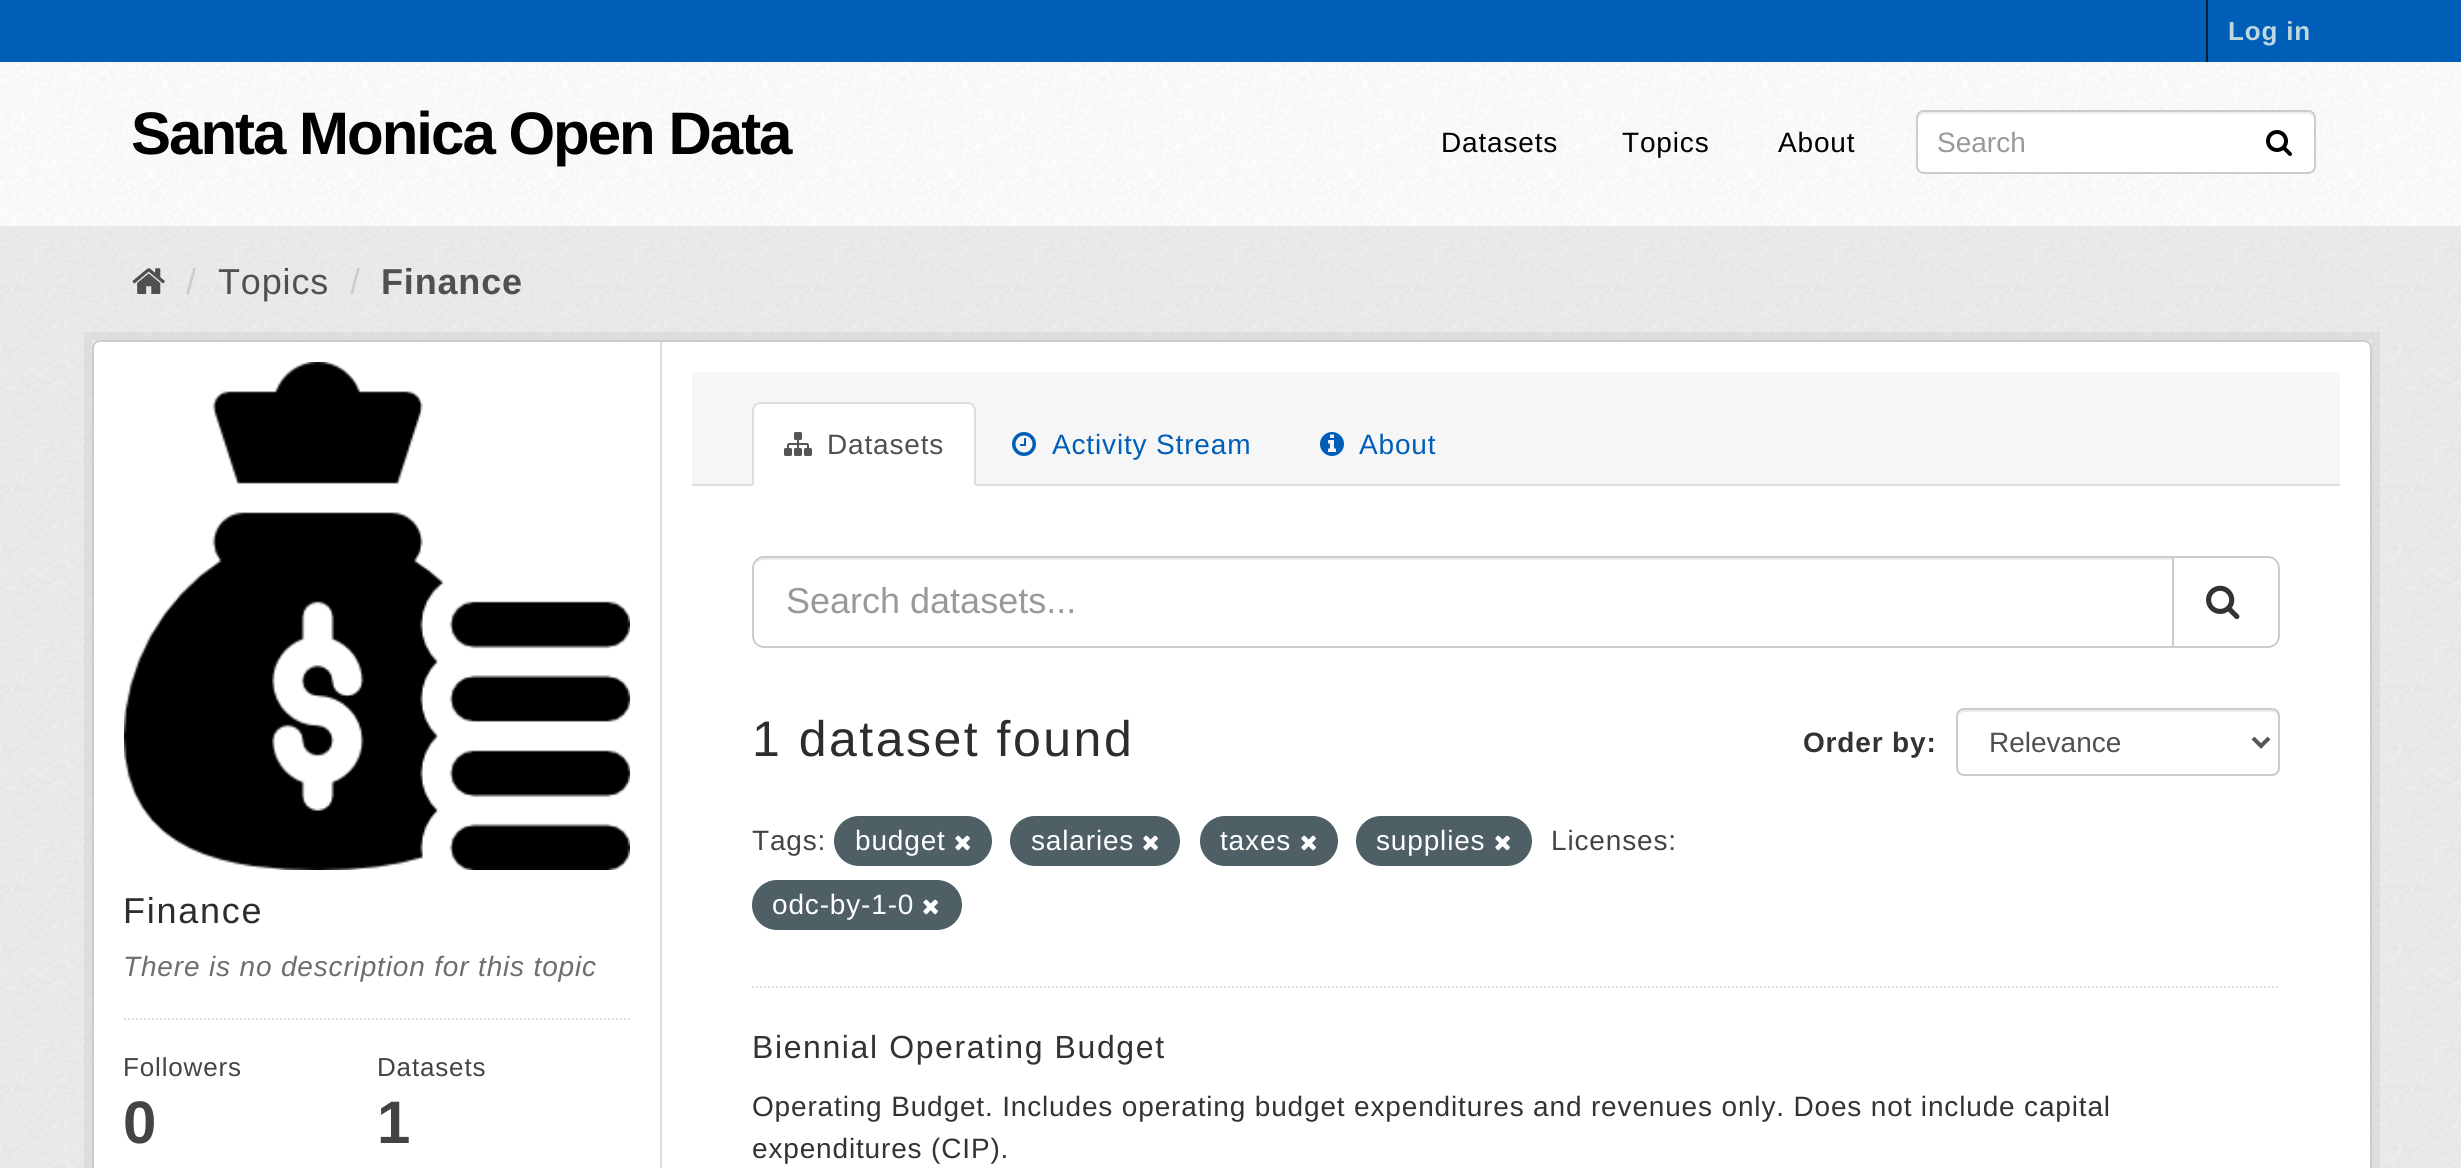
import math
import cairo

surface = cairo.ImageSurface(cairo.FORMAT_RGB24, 2461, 1168)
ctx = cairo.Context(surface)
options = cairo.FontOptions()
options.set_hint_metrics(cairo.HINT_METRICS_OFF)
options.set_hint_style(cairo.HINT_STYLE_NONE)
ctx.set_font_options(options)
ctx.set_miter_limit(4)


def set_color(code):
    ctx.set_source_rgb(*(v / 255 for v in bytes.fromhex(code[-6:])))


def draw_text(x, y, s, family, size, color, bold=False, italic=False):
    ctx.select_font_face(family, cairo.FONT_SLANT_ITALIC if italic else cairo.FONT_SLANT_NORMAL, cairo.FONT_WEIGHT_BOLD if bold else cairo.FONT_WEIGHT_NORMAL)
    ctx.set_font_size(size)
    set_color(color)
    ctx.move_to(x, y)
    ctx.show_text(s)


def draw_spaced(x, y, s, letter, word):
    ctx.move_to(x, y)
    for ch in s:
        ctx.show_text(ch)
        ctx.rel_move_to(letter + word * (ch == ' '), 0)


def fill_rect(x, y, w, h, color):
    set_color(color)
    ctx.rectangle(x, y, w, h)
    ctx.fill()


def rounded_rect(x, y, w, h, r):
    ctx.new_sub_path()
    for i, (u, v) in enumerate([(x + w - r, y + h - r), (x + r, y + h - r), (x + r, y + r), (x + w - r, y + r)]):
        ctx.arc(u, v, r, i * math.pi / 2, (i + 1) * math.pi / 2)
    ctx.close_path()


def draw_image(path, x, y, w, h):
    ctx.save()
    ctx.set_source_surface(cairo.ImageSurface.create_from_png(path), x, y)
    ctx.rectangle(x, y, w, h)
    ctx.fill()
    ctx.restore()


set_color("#005eb8")
ctx.paint()
fill_rect(2206, 0, 2, 62, "#00232e")
ctx.select_font_face("Liberation Sans", cairo.FONT_SLANT_NORMAL, cairo.FONT_WEIGHT_BOLD)
ctx.set_font_size(26)
set_color("#bfd7de")
draw_spaced(2228, 40, "Log in", 0.84, 0)
fill_rect(0, 62, 2461, 164, "#ffffff")
draw_image("assets/img1.png", 0, 62, 2461, 164)
ctx.set_font_size(60)
set_color("#000000")
draw_spaced(131, 154, "Santa Monica Open Data", -2, 0)
ctx.select_font_face("Liberation Sans")
ctx.set_font_size(28)
draw_spaced(1441, 152, "Datasets", 0.84, 0)
draw_spaced(1622, 152, "Topics", 0.84, 0)
draw_spaced(1778, 152, "About", 0.84, 0)
set_color("#ffffff")
rounded_rect(1916, 110, 400, 64, 8)
ctx.fill()
set_color("#ececec")
ctx.new_path()
ctx.move_to(1924, 114)
ctx.line_to(2308, 114)
ctx.curve_to(2311, 114, 2314, 117, 2314, 120)
ctx.curve_to(2314, 116, 2313, 112, 2308, 112)
ctx.line_to(1924, 112)
ctx.curve_to(1919, 112, 1918, 116, 1918, 120)
ctx.curve_to(1918, 117, 1921, 114, 1924, 114)
ctx.close_path()
ctx.fill()
rounded_rect(1917, 111, 398, 62, 7)
set_color("#cccccc")
ctx.stroke()
draw_text(1937, 152, "Search", "Liberation Sans", 28, "#999999")
draw_image("assets/img2.png", 2266, 130, 26, 26)
fill_rect(0, 226, 2461, 942, "#eeeeee")
draw_image("assets/img3.png", 0, 226, 2461, 942)
draw_image("assets/img4.png", 132, 268, 33, 26)
ctx.set_font_size(36)
set_color("#cccccc")
draw_spaced(186, 294, "/", 0.84, 0)
set_color("#505050")
draw_spaced(218, 294, "Topics", 0.84, 0)
set_color("#cccccc")
draw_spaced(350, 294, "/", 0.84, 0)
ctx.select_font_face("Liberation Sans", cairo.FONT_SLANT_NORMAL, cairo.FONT_WEIGHT_BOLD)
set_color("#505050")
draw_spaced(381, 294, "Finance", 0.84, 0)
ctx.rectangle(88, 336, 2288, 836)
ctx.set_source_rgba(0, 0, 0, 0.05)
ctx.set_line_width(8)
ctx.stroke()
set_color("#ffffff")
rounded_rect(93, 341, 2278, 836, 7)
ctx.fill_preserve()
set_color("#cccccc")
ctx.set_line_width(2)
ctx.stroke()
draw_image("assets/img5.png", 124, 362, 506, 508)
ctx.select_font_face("Liberation Sans")
set_color("#2f2d2c")
draw_spaced(123, 923, "Finance", 1.75, 0)
ctx.select_font_face("Liberation Sans", cairo.FONT_SLANT_ITALIC)
ctx.set_font_size(28)
set_color("#6e6e6e")
draw_spaced(123, 976, "There is no description for this topic", 0.84, 0)
ctx.new_path()
ctx.move_to(124, 1019)
ctx.line_to(630, 1019)
set_color("#dddddd")
ctx.set_dash([2, 2])
ctx.stroke()
ctx.select_font_face("Liberation Sans")
ctx.set_font_size(26)
set_color("#444444")
draw_spaced(123, 1076, "Followers", 0.84, 0)
ctx.select_font_face("Liberation Sans", cairo.FONT_SLANT_NORMAL, cairo.FONT_WEIGHT_BOLD)
ctx.set_font_size(60)
draw_spaced(123, 1143, "0", 0.84, 0)
ctx.select_font_face("Liberation Sans")
ctx.set_font_size(26)
draw_spaced(377, 1076, "Datasets", 0.84, 0)
ctx.select_font_face("Liberation Sans", cairo.FONT_SLANT_NORMAL, cairo.FONT_WEIGHT_BOLD)
ctx.set_font_size(60)
draw_spaced(377, 1143, "1", 0.84, 0)
fill_rect(660, 342, 2, 826, "#dddddd")
set_color("#f6f6f6")
ctx.new_path()
ctx.move_to(692, 372)
ctx.line_to(2334, 372)
ctx.curve_to(2337.5, 372, 2340, 374.5, 2340, 378)
ctx.line_to(2340, 486)
ctx.line_to(692, 486)
ctx.close_path()
ctx.fill()
fill_rect(692, 484, 1648, 2, "#dddddd")
set_color("#ffffff")
ctx.new_path()
ctx.move_to(760, 402)
ctx.line_to(968, 402)
ctx.curve_to(972.5, 402, 976, 405.5, 976, 410)
ctx.line_to(976, 486)
ctx.line_to(752, 486)
ctx.line_to(752, 410)
ctx.curve_to(752, 405.5, 755.5, 402, 760, 402)
ctx.close_path()
ctx.fill()
set_color("#dddddd")
ctx.new_path()
ctx.move_to(760, 402)
ctx.curve_to(758, 402, 756, 403, 754, 404)
ctx.line_to(756, 406)
ctx.curve_to(757, 405, 758, 404, 760, 404)
ctx.line_to(968, 404)
ctx.curve_to(970, 404, 971, 405, 972, 406)
ctx.line_to(974, 404)
ctx.curve_to(972, 403, 970, 402, 968, 402)
ctx.close_path()
ctx.fill()
ctx.new_path()
ctx.move_to(976, 486)
ctx.line_to(976, 410)
ctx.curve_to(976, 408, 975, 406, 974, 404)
ctx.line_to(972, 406)
ctx.line_to(974, 409)
ctx.line_to(974, 484)
ctx.close_path()
ctx.fill()
ctx.new_path()
ctx.move_to(752, 486)
ctx.line_to(754, 484)
ctx.line_to(754, 409)
ctx.line_to(756, 406)
ctx.line_to(754, 404)
ctx.curve_to(753, 406, 752, 408, 752, 410)
ctx.close_path()
ctx.fill()
draw_image("assets/img6.png", 784, 432, 28, 24)
ctx.select_font_face("Liberation Sans")
ctx.set_font_size(28)
set_color("#505050")
draw_spaced(827, 454, "Datasets", 0.84, 0)
draw_image("assets/img7.png", 1012, 432, 24, 24)
set_color("#005eb8")
draw_spaced(1052, 454, "Activity Stream", 0.84, 0)
draw_image("assets/img8.png", 1320, 432, 24, 24)
draw_spaced(1359, 454, "About", 0.84, 0)
ctx.new_path()
ctx.move_to(752, 987)
ctx.line_to(2280, 987)
set_color("#dddddd")
ctx.stroke()
set_color("#ececec")
ctx.new_path()
ctx.move_to(764, 560)
ctx.line_to(2172, 560)
ctx.line_to(2172, 558)
ctx.line_to(764, 558)
ctx.curve_to(757, 558, 754, 564, 754, 570)
ctx.curve_to(754, 564, 758, 560, 764, 560)
ctx.close_path()
ctx.fill()
ctx.new_path()
ctx.move_to(764, 557)
ctx.line_to(2173, 557)
ctx.line_to(2173, 647)
ctx.line_to(764, 647)
ctx.curve_to(758, 647, 753, 642, 753, 636)
ctx.line_to(753, 568)
ctx.curve_to(753, 562, 758, 557, 764, 557)
ctx.close_path()
set_color("#cccccc")
ctx.set_dash([])
ctx.stroke()
draw_text(786, 613, "Search datasets...", "Liberation Sans", 36, "#999999")
set_color("#ffffff")
ctx.new_path()
ctx.move_to(2173, 557)
ctx.line_to(2268, 557)
ctx.curve_to(2274, 557, 2279, 562, 2279, 568)
ctx.line_to(2279, 636)
ctx.curve_to(2279, 642, 2274, 647, 2268, 647)
ctx.line_to(2173, 647)
ctx.close_path()
ctx.fill_preserve()
set_color("#cccccc")
ctx.stroke()
draw_image("assets/img9.png", 2206, 585, 34, 35)
ctx.set_font_size(50)
set_color("#2f2d2c")
draw_spaced(752, 756, "1 dataset found", 2.5, 0)
ctx.select_font_face("Liberation Sans", cairo.FONT_SLANT_NORMAL, cairo.FONT_WEIGHT_BOLD)
ctx.set_font_size(28)
set_color("#333333")
draw_spaced(1803, 752, "Order by:", 0.84, 0)
set_color("#ececec")
ctx.new_path()
ctx.move_to(1964, 712)
ctx.line_to(2272, 712)
ctx.curve_to(2275, 712, 2278, 715, 2278, 718)
ctx.curve_to(2278, 714, 2277, 710, 2272, 710)
ctx.line_to(1963, 710)
ctx.curve_to(1959, 711, 1958, 715, 1958, 718)
ctx.curve_to(1958, 715, 1961, 712, 1964, 712)
ctx.close_path()
ctx.fill()
rounded_rect(1957, 709, 322, 66, 7)
set_color("#cccccc")
ctx.stroke()
ctx.new_path()
ctx.move_to(2253, 738)
ctx.line_to(2261, 746)
ctx.line_to(2269, 738)
set_color("#555555")
ctx.set_line_width(4)
ctx.stroke()
draw_text(1989, 752, "Relevance", "Liberation Sans", 28, "#505050")
set_color("#444444")
draw_spaced(752, 850, "Tags:", 0.84, 0)
set_color("#4e5f65")
rounded_rect(834, 816, 158, 50, 25)
ctx.fill()
set_color("#ffffff")
draw_spaced(855, 850, "budget", 0.84, 0)
draw_image("assets/img10.png", 955, 835, 15, 16)
set_color("#4e5f65")
rounded_rect(1010, 816, 170, 50, 25)
ctx.fill()
set_color("#ffffff")
draw_spaced(1031, 850, "salaries", 0.84, 0)
draw_image("assets/img10.png", 1143, 835, 15, 16)
set_color("#4e5f65")
rounded_rect(1200, 816, 138, 50, 25)
ctx.fill()
set_color("#ffffff")
draw_spaced(1220, 850, "taxes", 0.84, 0)
draw_image("assets/img10.png", 1301, 835, 15, 16)
set_color("#4e5f65")
rounded_rect(1356, 816, 176, 50, 25)
ctx.fill()
set_color("#ffffff")
draw_spaced(1376, 850, "supplies", 0.84, 0)
draw_image("assets/img10.png", 1495, 835, 15, 16)
set_color("#444444")
draw_spaced(1551, 850, "Licenses:", 0.84, 0)
set_color("#4e5f65")
rounded_rect(752, 880, 210, 50, 25)
ctx.fill()
set_color("#ffffff")
draw_spaced(772, 914, "odc-by-1-0", 0.84, 0)
draw_image("assets/img10.png", 923, 899, 15, 16)
ctx.set_font_size(32)
set_color("#333333")
draw_spaced(752, 1058, "Biennial Operating Budget", 1.6, 0)
ctx.set_font_size(28)
draw_spaced(752, 1116, "Operating Budget. Includes operating budget expenditures and revenues only. Does not include capital", 0.84, 0)
draw_spaced(752, 1158, "expenditures (CIP).", 0.84, 0)
surface.write_to_png("output.png")
